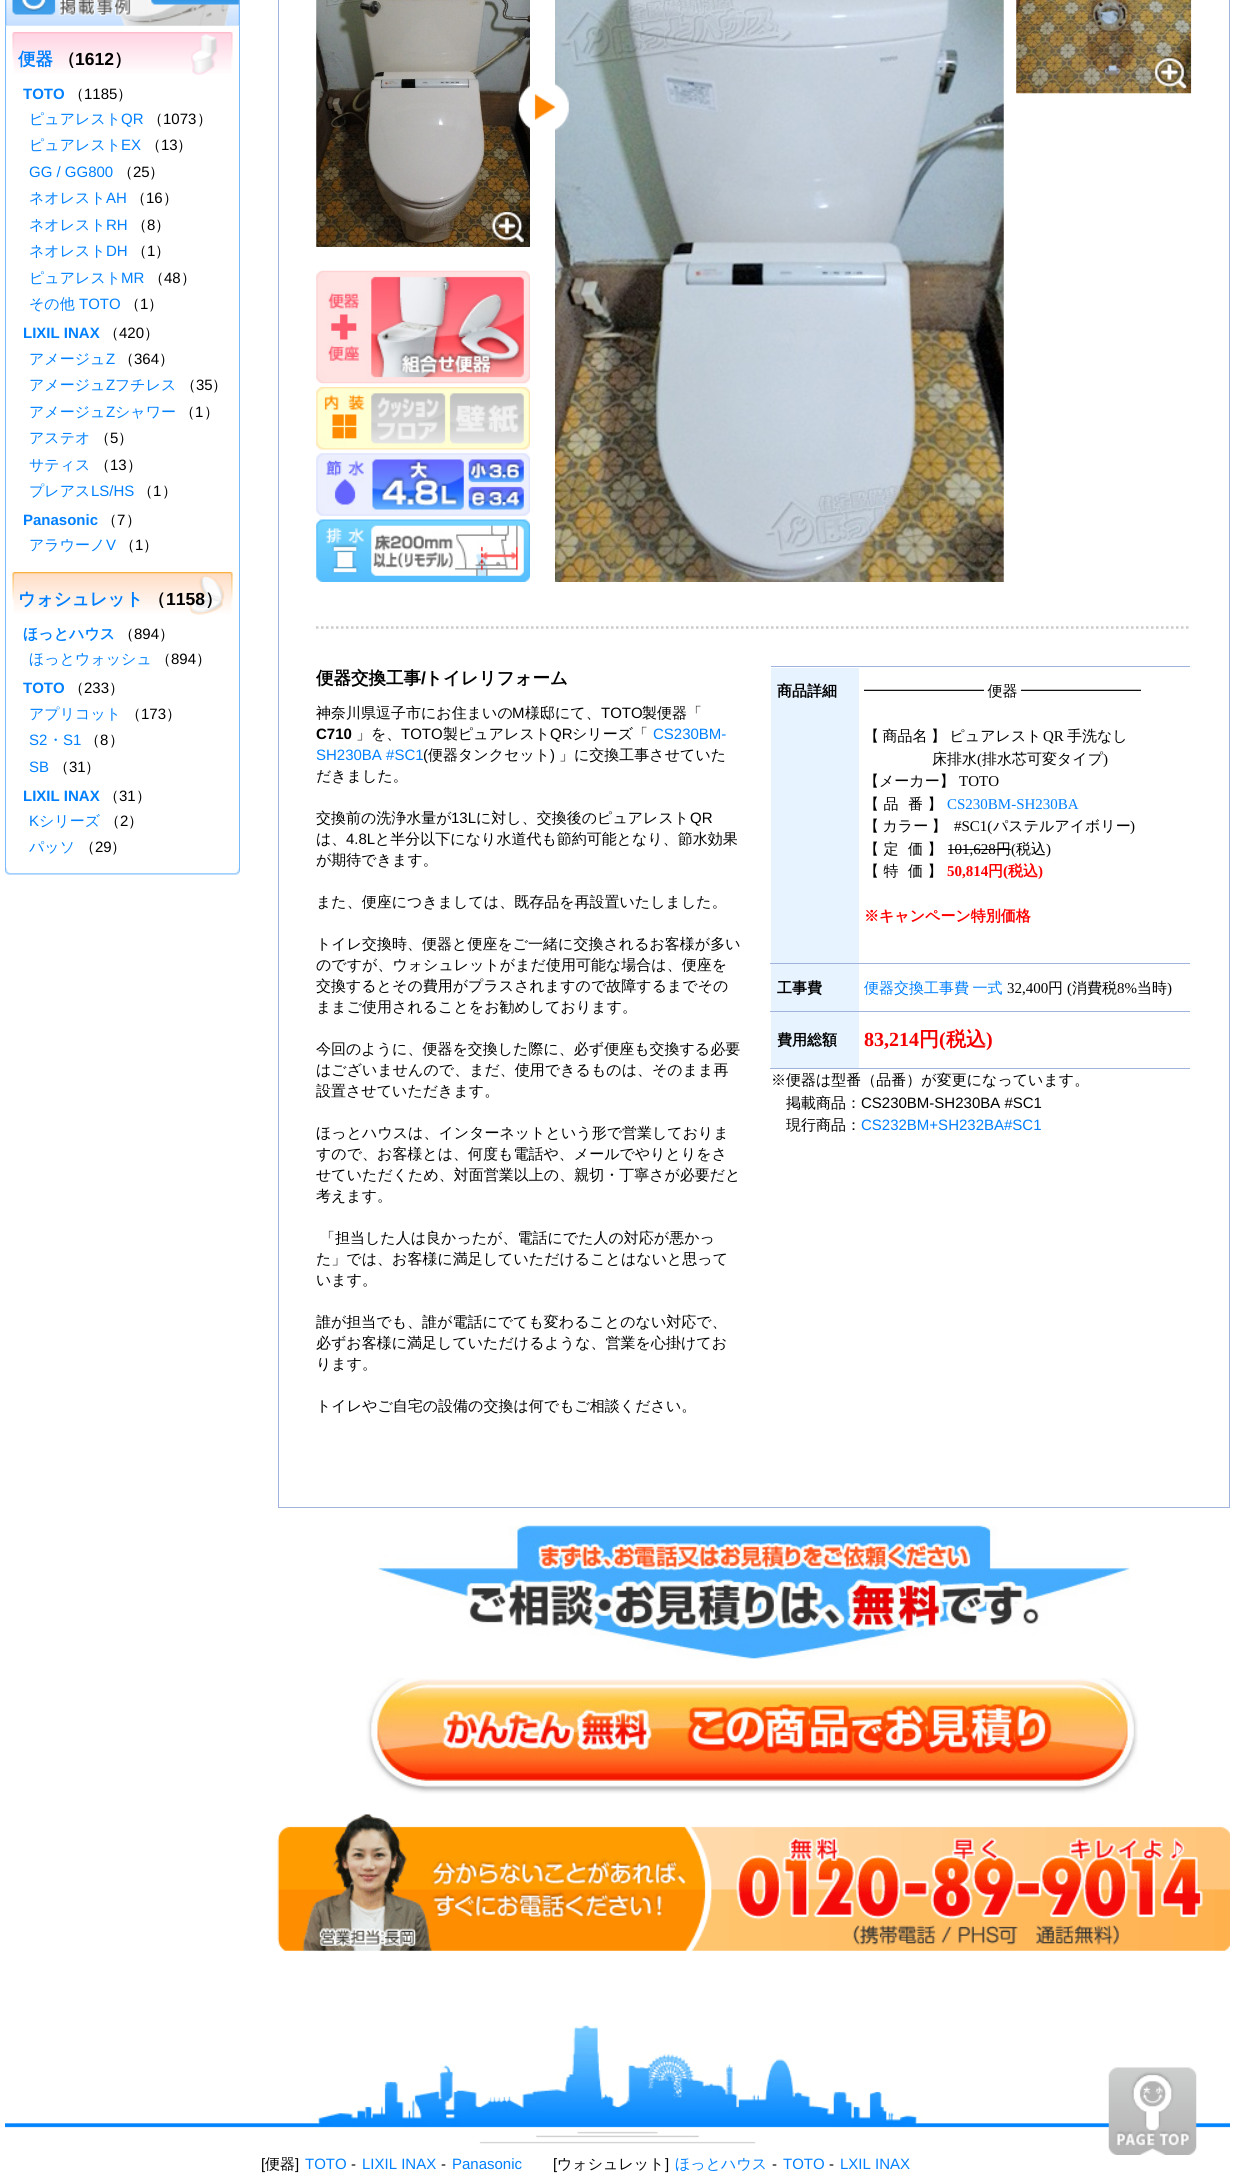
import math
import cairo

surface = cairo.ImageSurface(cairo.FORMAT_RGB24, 1233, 2179)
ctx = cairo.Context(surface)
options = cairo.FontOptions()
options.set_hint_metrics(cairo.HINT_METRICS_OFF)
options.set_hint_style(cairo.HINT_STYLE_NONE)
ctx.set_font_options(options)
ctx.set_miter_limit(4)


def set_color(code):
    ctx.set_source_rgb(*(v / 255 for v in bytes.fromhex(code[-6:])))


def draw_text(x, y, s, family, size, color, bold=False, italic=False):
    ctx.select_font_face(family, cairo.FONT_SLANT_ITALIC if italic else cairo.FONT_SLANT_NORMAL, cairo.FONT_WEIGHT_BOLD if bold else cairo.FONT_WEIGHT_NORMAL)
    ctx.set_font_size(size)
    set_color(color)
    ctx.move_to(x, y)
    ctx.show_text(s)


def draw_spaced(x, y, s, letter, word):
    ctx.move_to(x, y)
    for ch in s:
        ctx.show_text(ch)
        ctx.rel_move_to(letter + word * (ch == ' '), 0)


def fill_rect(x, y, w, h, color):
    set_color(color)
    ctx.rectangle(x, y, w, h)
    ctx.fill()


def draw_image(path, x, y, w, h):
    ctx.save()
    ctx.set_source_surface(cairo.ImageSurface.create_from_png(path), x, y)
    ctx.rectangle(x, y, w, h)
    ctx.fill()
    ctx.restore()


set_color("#ffffff")
ctx.paint()
draw_image("assets/img1.png", 5, 0, 235, 26)
draw_image("assets/img2.png", 5, 868, 235, 7)
fill_rect(239, 26, 1, 843, "#7bbcff")
fill_rect(5, 26, 1, 843, "#7bbcff")
draw_image("assets/img3.png", 12, 32, 221, 43)
draw_text(18, 65, "便器", "WenQuanYi Zen Hei", 17.5, "#0080ff", bold=True)
draw_text(58, 65, "（", "WenQuanYi Zen Hei", 17.5, "#000000", bold=True)
draw_text(75, 65, "1612", "Liberation Sans", 17.5, "#000000", bold=True)
draw_text(114, 65, "）", "WenQuanYi Zen Hei", 17.5, "#000000", bold=True)
draw_text(23, 99, "TOTO", "Liberation Sans", 15, "#0080ff", bold=True)
draw_text(69, 99, "（", "WenQuanYi Zen Hei Medium", 15, "#000000")
draw_text(84, 99, "1185", "Liberation Sans", 15, "#000000")
draw_text(117, 99, "）", "WenQuanYi Zen Hei Medium", 15, "#000000")
draw_text(29, 124, "ピュアレスト", "WenQuanYi Zen Hei Medium", 15, "#0080ff")
draw_text(121, 124, "QR", "Liberation Sans", 15, "#0080ff")
draw_text(148, 124, "（", "WenQuanYi Zen Hei Medium", 15, "#000000")
draw_text(163, 124, "1073", "Liberation Sans", 15, "#000000")
draw_text(197, 124, "）", "WenQuanYi Zen Hei Medium", 15, "#000000")
draw_text(29, 150, "ピュアレスト", "WenQuanYi Zen Hei Medium", 15, "#0080ff")
draw_text(121, 150, "EX", "Liberation Sans", 15, "#0080ff")
draw_text(146, 150, "（", "WenQuanYi Zen Hei Medium", 15, "#000000")
draw_text(161, 150, "13", "Liberation Sans", 15, "#000000")
draw_text(177, 150, "）", "WenQuanYi Zen Hei Medium", 15, "#000000")
draw_text(29, 177, "GG / GG800", "Liberation Sans", 15, "#0080ff")
draw_text(118, 177, "（", "WenQuanYi Zen Hei Medium", 15, "#000000")
draw_text(133, 177, "25", "Liberation Sans", 15, "#000000")
draw_text(149, 177, "）", "WenQuanYi Zen Hei Medium", 15, "#000000")
draw_text(29, 203, "ネオレスト", "WenQuanYi Zen Hei Medium", 15, "#0080ff")
draw_text(106, 203, "AH", "Liberation Sans", 15, "#0080ff")
draw_text(131, 203, "（", "WenQuanYi Zen Hei Medium", 15, "#000000")
draw_text(146, 203, "16", "Liberation Sans", 15, "#000000")
draw_text(163, 203, "）", "WenQuanYi Zen Hei Medium", 15, "#000000")
draw_text(29, 230, "ネオレスト", "WenQuanYi Zen Hei Medium", 15, "#0080ff")
draw_text(106, 230, "RH", "Liberation Sans", 15, "#0080ff")
draw_text(132, 230, "（", "WenQuanYi Zen Hei Medium", 15, "#000000")
draw_text(147, 230, "8", "Liberation Sans", 15, "#000000")
draw_text(155, 230, "）", "WenQuanYi Zen Hei Medium", 15, "#000000")
draw_text(29, 256, "ネオレスト", "WenQuanYi Zen Hei Medium", 15, "#0080ff")
draw_text(106, 256, "DH", "Liberation Sans", 15, "#0080ff")
draw_text(132, 256, "（", "WenQuanYi Zen Hei Medium", 15, "#000000")
draw_text(147, 256, "1", "Liberation Sans", 15, "#000000")
draw_text(155, 256, "）", "WenQuanYi Zen Hei Medium", 15, "#000000")
draw_text(29, 283, "ピュアレスト", "WenQuanYi Zen Hei Medium", 15, "#0080ff")
draw_text(121, 283, "MR", "Liberation Sans", 15, "#0080ff")
draw_text(149, 283, "（", "WenQuanYi Zen Hei Medium", 15, "#000000")
draw_text(164, 283, "48", "Liberation Sans", 15, "#000000")
draw_text(181, 283, "）", "WenQuanYi Zen Hei Medium", 15, "#000000")
draw_text(29, 309, "その他", "WenQuanYi Zen Hei Medium", 15, "#0080ff")
draw_text(79, 309, "TOTO", "Liberation Sans", 15, "#0080ff")
draw_text(125, 309, "（", "WenQuanYi Zen Hei Medium", 15, "#000000")
draw_text(140, 309, "1", "Liberation Sans", 15, "#000000")
draw_text(148, 309, "）", "WenQuanYi Zen Hei Medium", 15, "#000000")
draw_text(23, 338, "LIXIL INAX", "Liberation Sans", 15, "#0080ff", bold=True)
draw_text(104, 338, "（", "WenQuanYi Zen Hei Medium", 15, "#000000")
draw_text(119, 338, "420", "Liberation Sans", 15, "#000000")
draw_text(144, 338, "）", "WenQuanYi Zen Hei Medium", 15, "#000000")
draw_text(29, 364, "アメージュ", "WenQuanYi Zen Hei Medium", 15, "#0080ff")
draw_text(106, 364, "Z", "Liberation Sans", 15, "#0080ff")
draw_text(119, 364, "（", "WenQuanYi Zen Hei Medium", 15, "#000000")
draw_text(134, 364, "364", "Liberation Sans", 15, "#000000")
draw_text(159, 364, "）", "WenQuanYi Zen Hei Medium", 15, "#000000")
draw_text(29, 390, "アメージュ", "WenQuanYi Zen Hei Medium", 15, "#0080ff")
draw_text(106, 390, "Z", "Liberation Sans", 15, "#0080ff")
draw_text(115, 390, "フチレス", "WenQuanYi Zen Hei Medium", 15, "#0080ff")
draw_text(181, 390, "（", "WenQuanYi Zen Hei Medium", 15, "#000000")
draw_text(196, 390, "35", "Liberation Sans", 15, "#000000")
draw_text(212, 390, "）", "WenQuanYi Zen Hei Medium", 15, "#000000")
draw_text(29, 417, "アメージュ", "WenQuanYi Zen Hei Medium", 15, "#0080ff")
draw_text(106, 417, "Z", "Liberation Sans", 15, "#0080ff")
draw_text(115, 417, "シャワー", "WenQuanYi Zen Hei Medium", 15, "#0080ff")
draw_text(180, 417, "（", "WenQuanYi Zen Hei Medium", 15, "#000000")
draw_text(195, 417, "1", "Liberation Sans", 15, "#000000")
draw_text(204, 417, "）", "WenQuanYi Zen Hei Medium", 15, "#000000")
draw_text(29, 443, "アステオ", "WenQuanYi Zen Hei Medium", 15, "#0080ff")
draw_text(95, 443, "（", "WenQuanYi Zen Hei Medium", 15, "#000000")
draw_text(110, 443, "5", "Liberation Sans", 15, "#000000")
draw_text(118, 443, "）", "WenQuanYi Zen Hei Medium", 15, "#000000")
draw_text(29, 470, "サティス", "WenQuanYi Zen Hei Medium", 15, "#0080ff")
draw_text(95, 470, "（", "WenQuanYi Zen Hei Medium", 15, "#000000")
draw_text(110, 470, "13", "Liberation Sans", 15, "#000000")
draw_text(127, 470, "）", "WenQuanYi Zen Hei Medium", 15, "#000000")
draw_text(29, 496, "プレアス", "WenQuanYi Zen Hei Medium", 15, "#0080ff")
draw_text(91, 496, "LS/HS", "Liberation Sans", 15, "#0080ff")
draw_text(138, 496, "（", "WenQuanYi Zen Hei Medium", 15, "#000000")
draw_text(153, 496, "1", "Liberation Sans", 15, "#000000")
draw_text(162, 496, "）", "WenQuanYi Zen Hei Medium", 15, "#000000")
draw_text(23, 525, "Panasonic", "Liberation Sans", 15, "#0080ff", bold=True)
draw_text(102, 525, "（", "WenQuanYi Zen Hei Medium", 15, "#000000")
draw_text(117, 525, "7", "Liberation Sans", 15, "#000000")
draw_text(126, 525, "）", "WenQuanYi Zen Hei Medium", 15, "#000000")
draw_text(29, 550, "アラウーノ", "WenQuanYi Zen Hei Medium", 15, "#0080ff")
draw_text(106, 550, "V", "Liberation Sans", 15, "#0080ff")
draw_text(120, 550, "（", "WenQuanYi Zen Hei Medium", 15, "#000000")
draw_text(135, 550, "1", "Liberation Sans", 15, "#000000")
draw_text(143, 550, "）", "WenQuanYi Zen Hei Medium", 15, "#000000")
draw_image("assets/img4.png", 12, 572, 221, 43)
draw_text(18, 605, "ウォシュレット", "WenQuanYi Zen Hei", 17.5, "#0080ff", bold=True)
draw_text(148, 605, "（", "WenQuanYi Zen Hei", 17.5, "#000000", bold=True)
draw_text(166, 605, "1158", "Liberation Sans", 17.5, "#000000", bold=True)
draw_text(205, 605, "）", "WenQuanYi Zen Hei", 17.5, "#000000", bold=True)
draw_text(23, 639, "ほっとハウス", "WenQuanYi Zen Hei", 15, "#0080ff", bold=True)
draw_text(119, 639, "（", "WenQuanYi Zen Hei Medium", 15, "#000000")
draw_text(134, 639, "894", "Liberation Sans", 15, "#000000")
draw_text(159, 639, "）", "WenQuanYi Zen Hei Medium", 15, "#000000")
draw_text(29, 664, "ほっとウォッシュ", "WenQuanYi Zen Hei Medium", 15, "#0080ff")
draw_text(156, 664, "（", "WenQuanYi Zen Hei Medium", 15, "#000000")
draw_text(171, 664, "894", "Liberation Sans", 15, "#000000")
draw_text(196, 664, "）", "WenQuanYi Zen Hei Medium", 15, "#000000")
draw_text(23, 693, "TOTO", "Liberation Sans", 15, "#0080ff", bold=True)
draw_text(69, 693, "（", "WenQuanYi Zen Hei Medium", 15, "#000000")
draw_text(84, 693, "233", "Liberation Sans", 15, "#000000")
draw_text(109, 693, "）", "WenQuanYi Zen Hei Medium", 15, "#000000")
draw_text(29, 719, "アプリコット", "WenQuanYi Zen Hei Medium", 15, "#0080ff")
draw_text(126, 719, "（", "WenQuanYi Zen Hei Medium", 15, "#000000")
draw_text(141, 719, "173", "Liberation Sans", 15, "#000000")
draw_text(166, 719, "）", "WenQuanYi Zen Hei Medium", 15, "#000000")
draw_text(29, 745, "S2", "Liberation Sans", 15, "#0080ff")
draw_text(48, 745, "・", "WenQuanYi Zen Hei Medium", 15, "#0080ff")
draw_text(63, 745, "S1", "Liberation Sans", 15, "#0080ff")
draw_text(85, 745, "（", "WenQuanYi Zen Hei Medium", 15, "#000000")
draw_text(100, 745, "8", "Liberation Sans", 15, "#000000")
draw_text(109, 745, "）", "WenQuanYi Zen Hei Medium", 15, "#000000")
draw_text(29, 772, "SB", "Liberation Sans", 15, "#0080ff")
draw_text(54, 772, "（", "WenQuanYi Zen Hei Medium", 15, "#000000")
draw_text(69, 772, "31", "Liberation Sans", 15, "#000000")
draw_text(85, 772, "）", "WenQuanYi Zen Hei Medium", 15, "#000000")
draw_text(23, 801, "LIXIL INAX", "Liberation Sans", 15, "#0080ff", bold=True)
draw_text(104, 801, "（", "WenQuanYi Zen Hei Medium", 15, "#000000")
draw_text(119, 801, "31", "Liberation Sans", 15, "#000000")
draw_text(136, 801, "）", "WenQuanYi Zen Hei Medium", 15, "#000000")
draw_text(29, 826, "K", "Liberation Sans", 15, "#0080ff")
draw_text(39, 826, "シリーズ", "WenQuanYi Zen Hei Medium", 15, "#0080ff")
draw_text(105, 826, "（", "WenQuanYi Zen Hei Medium", 15, "#000000")
draw_text(120, 826, "2", "Liberation Sans", 15, "#000000")
draw_text(128, 826, "）", "WenQuanYi Zen Hei Medium", 15, "#000000")
draw_text(29, 852, "パッソ", "WenQuanYi Zen Hei Medium", 15, "#0080ff")
draw_text(80, 852, "（", "WenQuanYi Zen Hei Medium", 15, "#000000")
draw_text(95, 852, "29", "Liberation Sans", 15, "#000000")
draw_text(111, 852, "）", "WenQuanYi Zen Hei Medium", 15, "#000000")
ctx.rectangle(278.5, -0.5, 951, 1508)
set_color("#a0b3de")
ctx.set_line_width(1)
ctx.stroke()
draw_image("assets/img5.png", 316, 0, 214, 247)
draw_image("assets/img6.png", 492, 210, 33, 33)
draw_image("assets/img7.png", 555, 0, 449, 582)
draw_image("assets/img8.png", 1016, 0, 176, 94)
draw_image("assets/img9.png", 1154, 56, 34, 33)
draw_image("assets/img10.png", 518, 84, 51, 46)
draw_image("assets/img11.png", 316, 270, 214, 114)
draw_image("assets/img12.png", 316, 387, 214, 63)
draw_image("assets/img13.png", 316, 453, 214, 63)
draw_image("assets/img14.png", 316, 519, 214, 63)
ctx.new_path()
ctx.move_to(316, 627.5)
ctx.line_to(1191, 627.5)
set_color("#cccccc")
ctx.set_line_width(2.5)
ctx.set_dash([2.5, 2.5])
ctx.stroke()
draw_text(316, 684, "便器交換工事", "WenQuanYi Zen Hei", 17.5, "#000000", bold=True)
draw_text(421, 684, "/", "Liberation Sans", 17.5, "#000000", bold=True)
draw_text(425, 684, "トイレリフォーム", "WenQuanYi Zen Hei", 17.5, "#000000", bold=True)
draw_text(316, 718, "神奈川県逗子市にお住まいの", "WenQuanYi Zen Hei Medium", 15, "#000000")
draw_text(512, 718, "M", "Liberation Sans", 15, "#000000")
draw_text(525, 718, "様邸にて、", "WenQuanYi Zen Hei Medium", 15, "#000000")
draw_text(601, 718, "TOTO", "Liberation Sans", 15, "#000000")
draw_text(642, 718, "製便器「", "WenQuanYi Zen Hei Medium", 15, "#000000")
draw_text(316, 739, "C710", "Liberation Sans", 15, "#000000", bold=True)
draw_text(356, 739, "」を、", "WenQuanYi Zen Hei Medium", 15, "#000000")
draw_text(401, 739, "TOTO", "Liberation Sans", 15, "#000000")
draw_text(443, 739, "製ピュアレスト", "WenQuanYi Zen Hei Medium", 15, "#000000")
draw_text(550, 739, "QR", "Liberation Sans", 15, "#000000")
draw_text(572, 739, "シリーズ「", "WenQuanYi Zen Hei Medium", 15, "#000000")
draw_text(653, 739, "CS230BM-", "Liberation Sans", 15, "#0080ff")
draw_text(316, 760, "SH230BA #SC1", "Liberation Sans", 15, "#0080ff")
draw_text(423, 760, "(", "Liberation Sans", 15, "#000000")
draw_text(428, 760, "便器タンクセット", "WenQuanYi Zen Hei Medium", 15, "#000000")
draw_text(550, 760, ")", "Liberation Sans", 15, "#000000")
draw_text(559, 760, "」に交換工事させていた", "WenQuanYi Zen Hei Medium", 15, "#000000")
draw_text(316, 781, "だきました。", "WenQuanYi Zen Hei Medium", 15, "#000000")
draw_text(316, 823, "交換前の洗浄水量が", "WenQuanYi Zen Hei Medium", 15, "#000000")
draw_text(451, 823, "13L", "Liberation Sans", 15, "#000000")
draw_text(476, 823, "に対し、交換後のピュアレスト", "WenQuanYi Zen Hei Medium", 15, "#000000")
draw_text(690, 823, "QR", "Liberation Sans", 15, "#000000")
draw_text(316, 844, "は、", "WenQuanYi Zen Hei Medium", 15, "#000000")
draw_text(346, 844, "4.8L", "Liberation Sans", 15, "#000000")
draw_text(375, 844, "と半分以下になり水道代も節約可能となり、節水効果", "WenQuanYi Zen Hei Medium", 15, "#000000")
draw_text(316, 865, "が期待できます。", "WenQuanYi Zen Hei Medium", 15, "#000000")
draw_text(316, 907, "また、便座につきましては、既存品を再設置いたしました。", "WenQuanYi Zen Hei Medium", 15, "#000000")
draw_text(316, 949, "トイレ交換時、便器と便座をご一緒に交換されるお客様が多い", "WenQuanYi Zen Hei Medium", 15, "#000000")
draw_text(316, 970, "のですが、ウォシュレットがまだ使用可能な場合は、便座を", "WenQuanYi Zen Hei Medium", 15, "#000000")
draw_text(316, 991, "交換するとその費用がプラスされますので故障するまでその", "WenQuanYi Zen Hei Medium", 15, "#000000")
draw_text(316, 1012, "ままご使用されることをお勧めしております。", "WenQuanYi Zen Hei Medium", 15, "#000000")
draw_text(316, 1054, "今回のように、便器を交換した際に、必ず便座も交換する必要", "WenQuanYi Zen Hei Medium", 15, "#000000")
draw_text(316, 1075, "はございませんので、まだ、使用できるものは、そのまま再", "WenQuanYi Zen Hei Medium", 15, "#000000")
draw_text(316, 1096, "設置させていただきます。", "WenQuanYi Zen Hei Medium", 15, "#000000")
draw_text(316, 1138, "ほっとハウスは、インターネットという形で営業しておりま", "WenQuanYi Zen Hei Medium", 15, "#000000")
draw_text(316, 1159, "すので、お客様とは、何度も電話や、メールでやりとりをさ", "WenQuanYi Zen Hei Medium", 15, "#000000")
draw_text(316, 1180, "せていただくため、対面営業以上の、親切・丁寧さが必要だと", "WenQuanYi Zen Hei Medium", 15, "#000000")
draw_text(316, 1201, "考えます。", "WenQuanYi Zen Hei Medium", 15, "#000000")
draw_text(320, 1243, "「担当した人は良かったが、電話にでた人の対応が悪かっ", "WenQuanYi Zen Hei Medium", 15, "#000000")
draw_text(316, 1264, "た」では、お客様に満足していただけることはないと思って", "WenQuanYi Zen Hei Medium", 15, "#000000")
draw_text(316, 1285, "います。", "WenQuanYi Zen Hei Medium", 15, "#000000")
draw_text(316, 1327, "誰が担当でも、誰が電話にでても変わることのない対応で、", "WenQuanYi Zen Hei Medium", 15, "#000000")
draw_text(316, 1348, "必ずお客様に満足していただけるような、営業を心掛けてお", "WenQuanYi Zen Hei Medium", 15, "#000000")
draw_text(316, 1369, "ります。", "WenQuanYi Zen Hei Medium", 15, "#000000")
draw_text(316, 1411, "トイレやご自宅の設備の交換は何でもご相談ください。", "WenQuanYi Zen Hei Medium", 15, "#000000")
fill_rect(771, 666, 419, 1, "#a0b3de")
fill_rect(770, 963, 420, 1, "#a0b3de")
fill_rect(771, 668, 88, 295, "#e7f3ff")
draw_text(777, 696, "商品詳細", "WenQuanYi Zen Hei", 15, "#000000", bold=True)
ctx.select_font_face("WenQuanYi Zen Hei Medium")
draw_spaced(864, 696, "━━━━━━━━ 便器 ━━━━━━━━", 0, -1)
draw_spaced(864, 741, "【 商品名 】 ピュアレスト", 0, -1)
draw_text(1043, 741, "QR", "Liberation Serif", 15, "#000000")
draw_text(1067, 741, "手洗なし", "WenQuanYi Zen Hei Medium", 15, "#000000")
draw_text(932, 764, "床排水", "WenQuanYi Zen Hei Medium", 15, "#000000")
draw_text(977, 764, "(", "Liberation Serif", 15, "#000000")
draw_text(982, 764, "排水芯可変タイプ", "WenQuanYi Zen Hei Medium", 15, "#000000")
draw_text(1103, 764, ")", "Liberation Serif", 15, "#000000")
draw_text(864, 786, "【メーカー】", "WenQuanYi Zen Hei Medium", 15, "#000000")
draw_text(959, 786, "TOTO", "Liberation Serif", 15, "#000000")
draw_text(864, 809, "【 品", "WenQuanYi Zen Hei Medium", 15, "#000000")
draw_text(908, 809, "番 】", "WenQuanYi Zen Hei Medium", 15, "#000000")
draw_text(947, 809, "CS230BM-SH230BA", "Liberation Serif", 15, "#0080ff")
ctx.select_font_face("WenQuanYi Zen Hei Medium")
set_color("#000000")
draw_spaced(864, 831, "【 カラー 】", 0, -1)
draw_text(954, 831, "#SC1(", "Liberation Serif", 15, "#000000")
draw_text(993, 831, "パステルアイボリー", "WenQuanYi Zen Hei Medium", 15, "#000000")
draw_text(1130, 831, ")", "Liberation Serif", 15, "#000000")
draw_text(864, 854, "【 定", "WenQuanYi Zen Hei Medium", 15, "#000000")
draw_text(908, 854, "価 】", "WenQuanYi Zen Hei Medium", 15, "#000000")
draw_text(947, 854, "101,628", "Liberation Serif", 15, "#000000")
draw_text(996, 854, "円", "WenQuanYi Zen Hei Medium", 15, "#000000")
fill_rect(948, 849, 63, 1, "#000000")
draw_text(1011, 854, "(", "Liberation Serif", 15, "#000000")
draw_text(1016, 854, "税込", "WenQuanYi Zen Hei Medium", 15, "#000000")
draw_text(1046, 854, ")", "Liberation Serif", 15, "#000000")
draw_text(864, 876, "【 特", "WenQuanYi Zen Hei Medium", 15, "#000000")
draw_text(908, 876, "価 】", "WenQuanYi Zen Hei Medium", 15, "#000000")
draw_text(947, 876, "50,814", "Liberation Serif", 15, "#ff0000", bold=True)
draw_text(988, 876, "円", "WenQuanYi Zen Hei", 15, "#ff0000", bold=True)
draw_text(1003, 876, "(", "Liberation Serif", 15, "#ff0000", bold=True)
draw_text(1008, 876, "税込", "WenQuanYi Zen Hei", 15, "#ff0000", bold=True)
draw_text(1038, 876, ")", "Liberation Serif", 15, "#ff0000", bold=True)
draw_text(864, 921, "※キャンペーン特別価格", "WenQuanYi Zen Hei", 15, "#ff0000", bold=True)
fill_rect(771, 964, 88, 104, "#e7f3ff")
fill_rect(770, 1011, 420, 1, "#a0b3de")
draw_text(777, 993, "工事費", "WenQuanYi Zen Hei", 15, "#000000", bold=True)
ctx.select_font_face("WenQuanYi Zen Hei Medium")
set_color("#0080ff")
draw_spaced(864, 993, "便器交換工事費 一式", 0, -1)
draw_text(1007, 993, "32,400", "Liberation Serif", 15, "#000000")
draw_text(1048, 993, "円", "WenQuanYi Zen Hei Medium", 15, "#000000")
draw_text(1067, 993, "(", "Liberation Serif", 15, "#000000")
draw_text(1072, 993, "消費税", "WenQuanYi Zen Hei Medium", 15, "#000000")
draw_text(1117, 993, "8%", "Liberation Serif", 15, "#000000")
draw_text(1137, 993, "当時", "WenQuanYi Zen Hei Medium", 15, "#000000")
draw_text(1167, 993, ")", "Liberation Serif", 15, "#000000")
fill_rect(770, 1068, 420, 1, "#a0b3de")
draw_text(777, 1045, "費用総額", "WenQuanYi Zen Hei", 15, "#000000", bold=True)
draw_text(864, 1046, "83,214", "Liberation Serif", 20, "#f50000", bold=True)
draw_text(919, 1046, "円", "WenQuanYi Zen Hei", 20, "#f50000", bold=True)
draw_text(939, 1046, "(", "Liberation Serif", 20, "#f50000", bold=True)
draw_text(946, 1046, "税込", "WenQuanYi Zen Hei", 20, "#f50000", bold=True)
draw_text(986, 1046, ")", "Liberation Serif", 20, "#f50000", bold=True)
draw_text(771, 1085, "※便器は型番（品番）が変更になっています。", "WenQuanYi Zen Hei Medium", 15, "#000000")
draw_text(786, 1108, "掲載商品：", "WenQuanYi Zen Hei Medium", 15, "#000000")
draw_text(861, 1108, "CS230BM-SH230BA #SC1", "Liberation Sans", 15, "#000000")
draw_text(786, 1130, "現行商品：", "WenQuanYi Zen Hei Medium", 15, "#000000")
draw_text(861, 1130, "CS232BM+SH232BA#SC1", "Liberation Sans", 15, "#0080ff")
draw_image("assets/img15.png", 377, 1525, 753, 135)
draw_image("assets/img16.png", 366, 1678, 772, 116)
draw_image("assets/img17.png", 277, 1814, 953, 137)
draw_image("assets/img19.png", 5, 2025, 1225, 119)
draw_image("assets/img18.png", 1108, 2067, 89, 88)
draw_text(261, 2169, "[", "Liberation Sans", 15, "#000000")
draw_text(265, 2169, "便器", "WenQuanYi Zen Hei Medium", 15, "#000000")
draw_text(295, 2169, "]", "Liberation Sans", 15, "#000000")
draw_text(305, 2169, "TOTO", "Liberation Sans", 15, "#0080ff")
draw_text(351, 2169, "-", "Liberation Sans", 15, "#000000")
draw_text(362, 2169, "LIXIL INAX", "Liberation Sans", 15, "#0080ff")
draw_text(441, 2169, "-", "Liberation Sans", 15, "#000000")
draw_text(452, 2169, "Panasonic", "Liberation Sans", 15, "#0080ff")
draw_text(553, 2169, "[", "Liberation Sans", 15, "#000000")
draw_text(557, 2169, "ウォシュレット", "WenQuanYi Zen Hei Medium", 15, "#000000")
draw_text(665, 2169, "]", "Liberation Sans", 15, "#000000")
draw_text(675, 2169, "ほっとハウス", "WenQuanYi Zen Hei Medium", 15, "#0080ff")
draw_text(772, 2169, "-", "Liberation Sans", 15, "#000000")
draw_text(783, 2169, "TOTO", "Liberation Sans", 15, "#0080ff")
draw_text(829, 2169, "-", "Liberation Sans", 15, "#000000")
draw_text(840, 2169, "LXIL INAX", "Liberation Sans", 15, "#0080ff")
surface.write_to_png("output.png")
